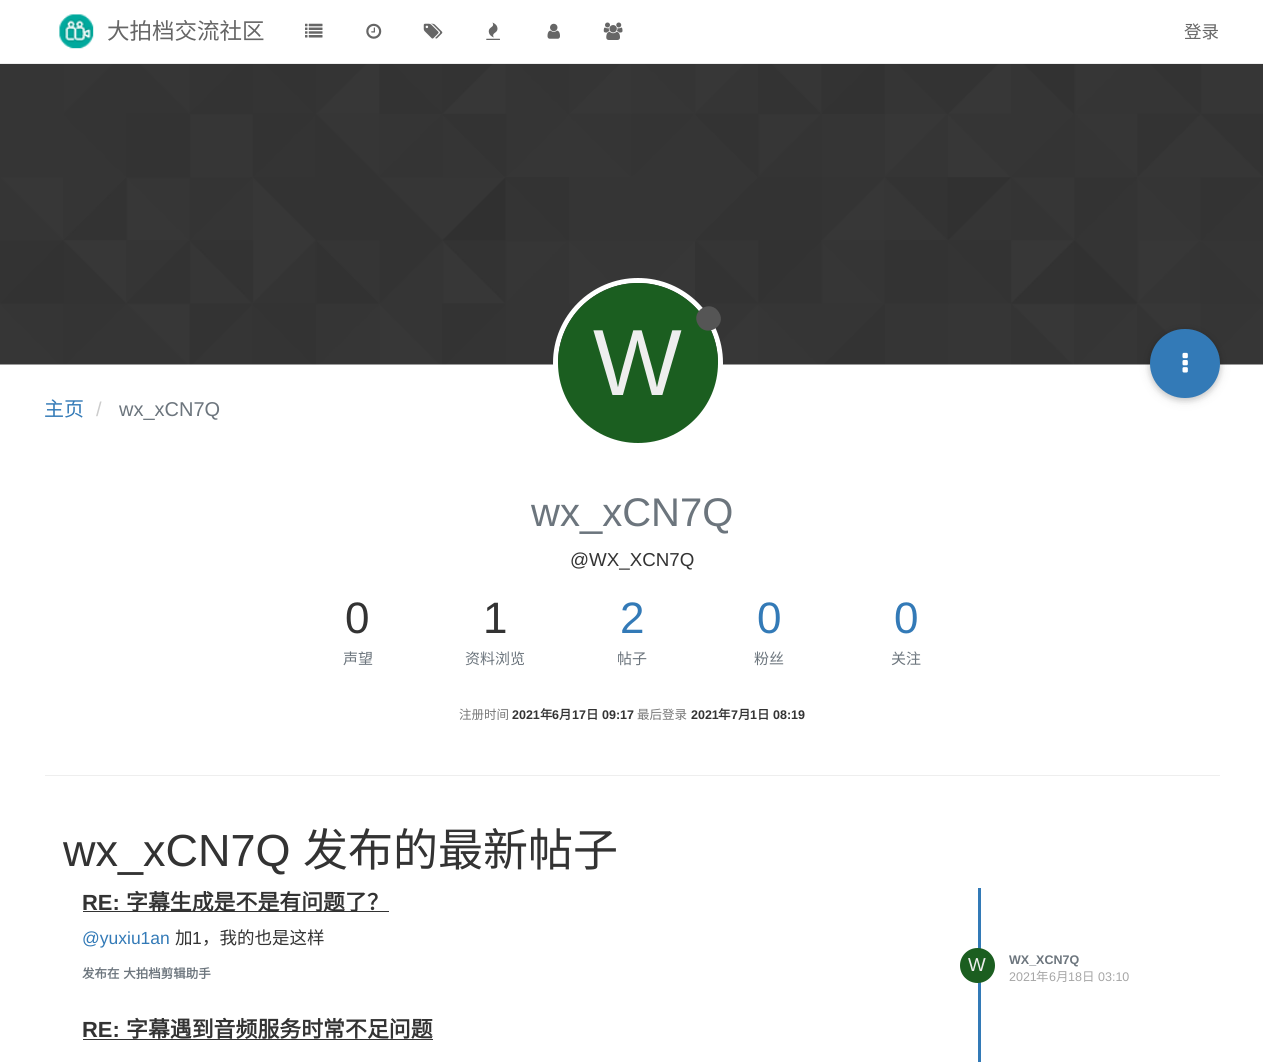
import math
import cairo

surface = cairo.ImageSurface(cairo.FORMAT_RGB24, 1263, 1062)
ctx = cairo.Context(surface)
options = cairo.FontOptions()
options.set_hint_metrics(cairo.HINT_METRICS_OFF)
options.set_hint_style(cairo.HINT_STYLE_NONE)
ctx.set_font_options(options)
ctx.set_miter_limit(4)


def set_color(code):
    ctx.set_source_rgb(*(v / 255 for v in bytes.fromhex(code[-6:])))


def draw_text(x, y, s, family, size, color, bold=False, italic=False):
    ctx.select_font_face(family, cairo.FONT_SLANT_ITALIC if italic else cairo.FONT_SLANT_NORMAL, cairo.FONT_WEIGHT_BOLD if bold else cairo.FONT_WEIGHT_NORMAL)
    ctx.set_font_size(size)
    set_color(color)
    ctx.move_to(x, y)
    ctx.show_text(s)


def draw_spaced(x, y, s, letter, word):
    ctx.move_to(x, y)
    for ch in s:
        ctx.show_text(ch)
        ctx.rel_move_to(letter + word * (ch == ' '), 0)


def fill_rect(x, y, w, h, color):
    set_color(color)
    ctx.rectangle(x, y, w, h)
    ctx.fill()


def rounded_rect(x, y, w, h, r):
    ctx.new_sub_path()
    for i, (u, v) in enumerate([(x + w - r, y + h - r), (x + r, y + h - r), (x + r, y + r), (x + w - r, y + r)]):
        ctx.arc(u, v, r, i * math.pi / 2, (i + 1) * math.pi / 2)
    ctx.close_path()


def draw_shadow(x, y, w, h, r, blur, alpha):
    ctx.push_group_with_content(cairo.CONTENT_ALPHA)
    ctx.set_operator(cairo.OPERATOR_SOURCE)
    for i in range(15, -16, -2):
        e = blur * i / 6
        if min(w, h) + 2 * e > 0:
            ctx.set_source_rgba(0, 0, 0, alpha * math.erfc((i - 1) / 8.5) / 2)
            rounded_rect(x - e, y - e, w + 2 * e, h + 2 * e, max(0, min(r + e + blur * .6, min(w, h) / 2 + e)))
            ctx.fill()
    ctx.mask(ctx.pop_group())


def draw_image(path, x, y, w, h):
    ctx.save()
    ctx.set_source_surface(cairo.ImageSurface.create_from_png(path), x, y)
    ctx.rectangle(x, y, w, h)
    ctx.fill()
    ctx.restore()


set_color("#ffffff")
ctx.paint()
fill_rect(0, 63, 1263, 1, "#eeeeee")
draw_image("assets/img1.png", 59, 14, 35, 35)
draw_text(107, 39, "大拍档交流社区", "Noto Sans CJK SC", 22.5, "#666666")
draw_image("assets/img2.png", 305, 23, 18, 15)
draw_image("assets/img3.png", 366, 23, 16, 16)
draw_image("assets/img4.png", 423, 23, 20, 16)
draw_image("assets/img5.png", 486, 22, 14, 18)
draw_image("assets/img6.png", 547, 23, 13, 16)
draw_image("assets/img7.png", 603, 22, 20, 18)
draw_text(1184, 38, "登录", "Noto Sans CJK SC", 17.5, "#666666")
draw_image("assets/img8.png", 0, 64, 1263, 301)
ctx.arc(638, 363, 82.5, 0, 2 * math.pi)
set_color("#ffffff")
ctx.set_line_width(5)
ctx.stroke()
set_color("#1b5e20")
ctx.arc(638, 363, 80, 0, 2 * math.pi)
ctx.fill()
set_color("#555555")
ctx.new_path()
ctx.move_to(719, 312.5)
ctx.curve_to(727.5, 326, 706, 338.5, 698, 324.5)
ctx.curve_to(690, 310.5, 711, 298.5, 719, 312.5)
ctx.close_path()
ctx.fill()
draw_text(593, 395, "W", "Liberation Sans", 94, "#eeeeee")
set_color("#000000")
draw_shadow(1150, 331, 70, 69, 34.5, 6, 0.12)
draw_shadow(1150, 331, 70, 69, 34.5, 3, 0.16)
set_color("#337ab7")
rounded_rect(1150, 329, 70, 69, 34.5)
ctx.fill()
draw_image("assets/img9.png", 1182, 352, 6, 21)
draw_text(44, 416, "主页", "Noto Sans CJK SC", 20, "#337ab7")
draw_text(96, 416, "/", "Liberation Sans", 20, "#cccccc")
draw_text(119, 416, "wx_xCN7Q", "Liberation Sans", 20, "#6c757d")
draw_text(531, 526, "wx_xCN7Q", "Liberation Sans", 40, "#6c757d")
draw_text(570, 566, "@WX_XCN7Q", "Liberation Sans", 18.75, "#333333")
draw_text(345, 633, "0", "Liberation Sans", 44, "#333333")
draw_text(343, 664, "声望", "Noto Sans CJK SC", 15, "#6c757d")
draw_text(483, 633, "1", "Liberation Sans", 44, "#333333")
draw_text(465, 664, "资料浏览", "Noto Sans CJK SC", 15, "#6c757d")
draw_text(620, 633, "2", "Liberation Sans", 44, "#337ab7")
draw_text(617, 664, "帖子", "Noto Sans CJK SC", 15, "#6c757d")
draw_text(757, 633, "0", "Liberation Sans", 44, "#337ab7")
draw_text(754, 664, "粉丝", "Noto Sans CJK SC", 15, "#6c757d")
draw_text(894, 633, "0", "Liberation Sans", 44, "#337ab7")
draw_text(891, 664, "关注", "Noto Sans CJK SC", 15, "#6c757d")
draw_text(459, 719, "注册时间", "Noto Sans CJK SC", 12.5, "#777777")
draw_text(512, 719, "2021", "Liberation Sans", 12.5, "#333333", bold=True)
draw_text(540, 719, "年", "Noto Sans CJK SC", 12.5, "#333333", bold=True)
draw_text(552, 719, "6", "Liberation Sans", 12.5, "#333333", bold=True)
draw_text(559, 719, "月", "Noto Sans CJK SC", 12.5, "#333333", bold=True)
draw_text(572, 719, "17", "Liberation Sans", 12.5, "#333333", bold=True)
draw_text(586, 719, "日", "Noto Sans CJK SC", 12.5, "#333333", bold=True)
draw_text(602, 719, "09:17", "Liberation Sans", 12.5, "#333333", bold=True)
draw_text(637, 719, "最后登录", "Noto Sans CJK SC", 12.5, "#777777")
draw_text(691, 719, "2021", "Liberation Sans", 12.5, "#333333", bold=True)
draw_text(718, 719, "年", "Noto Sans CJK SC", 12.5, "#333333", bold=True)
draw_text(731, 719, "7", "Liberation Sans", 12.5, "#333333", bold=True)
draw_text(738, 719, "月", "Noto Sans CJK SC", 12.5, "#333333", bold=True)
draw_text(750, 719, "1", "Liberation Sans", 12.5, "#333333", bold=True)
draw_text(757, 719, "日", "Noto Sans CJK SC", 12.5, "#333333", bold=True)
draw_text(773, 719, "08:19", "Liberation Sans", 12.5, "#333333", bold=True)
fill_rect(45, 775, 1175, 1, "#eeeeee")
draw_text(63, 866, "wx_xCN7Q", "Liberation Sans", 45, "#333333")
draw_text(303, 866, "发布的最新帖子", "Noto Sans CJK SC", 45, "#333333")
fill_rect(978, 888, 3, 174, "#337ab7")
draw_text(82, 910, "RE:", "Liberation Sans", 21.9, "#333333", bold=True)
fill_rect(83, 911, 306, 1, "#333333")
draw_text(126, 910, "字幕生成是不是有问题了？", "Noto Sans CJK SC", 21.9, "#333333", bold=True)
draw_text(82, 944, "@yuxiu1an", "Liberation Sans", 17.5, "#337ab7")
draw_text(175, 944, "加", "Noto Sans CJK SC", 17.5, "#333333")
draw_text(192, 944, "1", "Liberation Sans", 17.5, "#333333")
draw_text(202, 944, "，我的也是这样", "Noto Sans CJK SC", 17.5, "#333333")
ctx.select_font_face("Noto Sans CJK SC", cairo.FONT_SLANT_NORMAL, cairo.FONT_WEIGHT_BOLD)
ctx.set_font_size(12.5)
set_color("#6c757d")
draw_spaced(82, 978, "发布在 大拍档剪辑助手", 0, 1)
set_color("#1b5e20")
ctx.new_path()
ctx.arc(977.5, 965.5, 17.5, 0, 2 * math.pi)
ctx.fill()
draw_text(968, 971, "W", "Liberation Sans", 18.75, "#eeeeee")
draw_text(1009, 964, "WX_XCN7Q", "Liberation Sans", 12.5, "#6c757d", bold=True)
draw_text(1009, 981, "2021", "Liberation Sans", 12.5, "#a6a6a6")
draw_text(1036, 981, "年", "Noto Sans CJK SC", 12.5, "#a6a6a6")
draw_text(1049, 981, "6", "Liberation Sans", 12.5, "#a6a6a6")
draw_text(1056, 981, "月", "Noto Sans CJK SC", 12.5, "#a6a6a6")
draw_text(1068, 981, "18", "Liberation Sans", 12.5, "#a6a6a6")
draw_text(1082, 981, "日", "Noto Sans CJK SC", 12.5, "#a6a6a6")
draw_text(1098, 981, "03:10", "Liberation Sans", 12.5, "#a6a6a6")
draw_text(82, 1037, "RE:", "Liberation Sans", 21.9, "#333333", bold=True)
fill_rect(83, 1039, 350, 1, "#333333")
draw_text(126, 1037, "字幕遇到音频服务时常不足问题", "Noto Sans CJK SC", 21.9, "#333333", bold=True)
surface.write_to_png("output.png")
